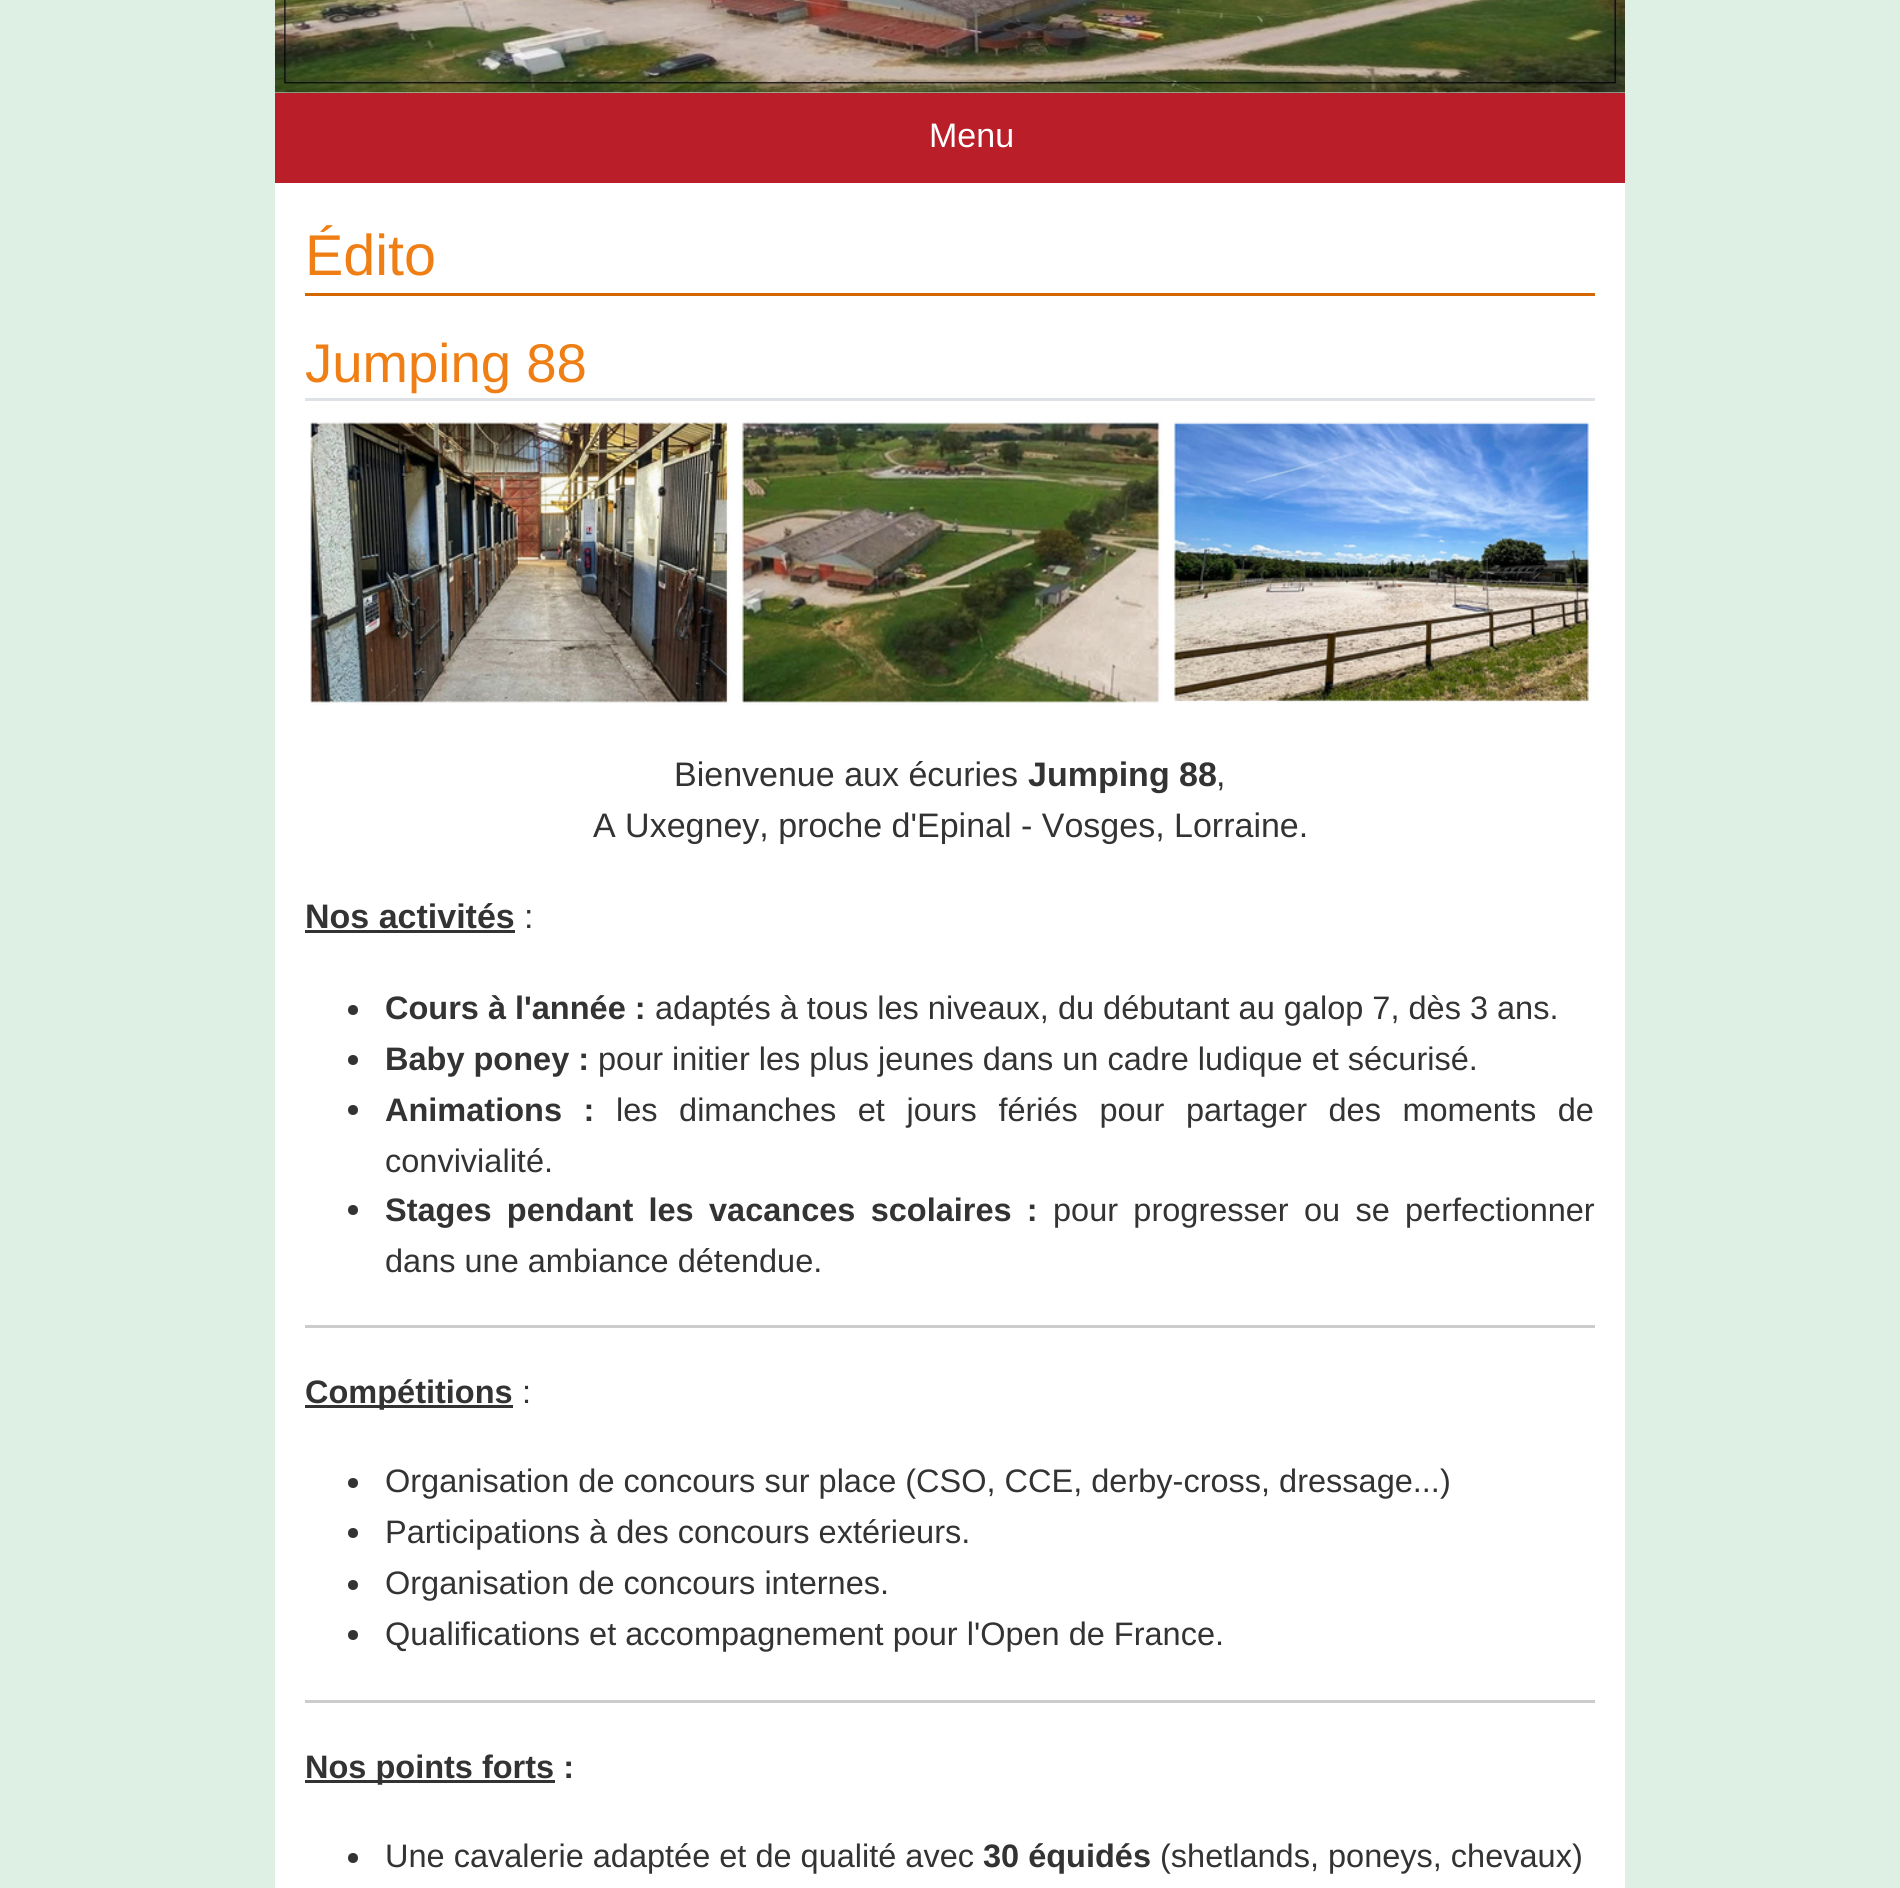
import math
import cairo

surface = cairo.ImageSurface(cairo.FORMAT_RGB24, 1900, 1888)
ctx = cairo.Context(surface)
options = cairo.FontOptions()
options.set_hint_metrics(cairo.HINT_METRICS_OFF)
options.set_hint_style(cairo.HINT_STYLE_NONE)
ctx.set_font_options(options)
ctx.set_miter_limit(4)


def set_color(code):
    ctx.set_source_rgb(*(v / 255 for v in bytes.fromhex(code[-6:])))


def draw_text(x, y, s, family, size, color, bold=False, italic=False):
    ctx.select_font_face(family, cairo.FONT_SLANT_ITALIC if italic else cairo.FONT_SLANT_NORMAL, cairo.FONT_WEIGHT_BOLD if bold else cairo.FONT_WEIGHT_NORMAL)
    ctx.set_font_size(size)
    set_color(color)
    ctx.move_to(x, y)
    ctx.show_text(s)


def draw_spaced(x, y, s, letter, word):
    ctx.move_to(x, y)
    for ch in s:
        ctx.show_text(ch)
        ctx.rel_move_to(letter + word * (ch == ' '), 0)


def fill_rect(x, y, w, h, color):
    set_color(color)
    ctx.rectangle(x, y, w, h)
    ctx.fill()


def draw_image(path, x, y, w, h):
    ctx.save()
    ctx.set_source_surface(cairo.ImageSurface.create_from_png(path), x, y)
    ctx.rectangle(x, y, w, h)
    ctx.fill()
    ctx.restore()


set_color("#deefe4")
ctx.paint()
draw_image("assets/img1.png", 275, 0, 1350, 93)
fill_rect(275, 93, 1350, 90, "#b91e29")
draw_text(929, 147, "Menu", "Liberation Sans", 34, "#ffffff")
fill_rect(275, 183, 1350, 1705, "#ffffff")
fill_rect(305, 293, 1290, 3, "#d46700")
draw_text(305, 275, "Édito", "Liberation Sans", 57.5, "#ef7f14")
fill_rect(305, 398, 1290, 3, "#dee2e6")
draw_text(305, 382, "Jumping 88", "Liberation Sans", 54.5, "#ef7f14")
draw_image("assets/img2.png", 310, 415, 1285, 290)
draw_text(674, 786, "Bienvenue aux écuries", "Liberation Sans", 34, "#333333")
draw_text(1028, 786, "Jumping 88", "Liberation Sans", 34, "#333333", bold=True)
draw_text(1216, 786, ",", "Liberation Sans", 34, "#333333")
draw_text(593, 837, "A Uxegney, proche d'Epinal - Vosges, Lorraine.", "Liberation Sans", 34, "#333333")
draw_text(305, 928, "Nos activités", "Liberation Sans", 34, "#333333", bold=True)
fill_rect(305, 930, 210, 3, "#333333")
draw_text(524, 928, ":", "Liberation Sans", 34, "#333333")
ctx.new_path()
ctx.arc(353, 1010, 5, 0, 2 * math.pi)
ctx.fill()
draw_text(385, 1019, "Cours à l'année :", "Liberation Sans", 32.5, "#333333", bold=True)
draw_text(655, 1019, "adaptés à tous les niveaux, du débutant au galop 7, dès 3 ans.", "Liberation Sans", 32.5, "#333333")
ctx.new_path()
ctx.arc(353, 1060, 5, 0, 2 * math.pi)
ctx.fill()
draw_text(385, 1070, "Baby poney :", "Liberation Sans", 32.5, "#333333", bold=True)
draw_text(598, 1070, "pour initier les plus jeunes dans un cadre ludique et sécurisé.", "Liberation Sans", 32.5, "#333333")
ctx.new_path()
ctx.arc(353, 1110, 5, 0, 2 * math.pi)
ctx.fill()
ctx.select_font_face("Liberation Sans", cairo.FONT_SLANT_NORMAL, cairo.FONT_WEIGHT_BOLD)
draw_spaced(385, 1121, "Animations :", 0, 12.5)
ctx.select_font_face("Liberation Sans")
draw_spaced(616, 1121, "les dimanches et jours fériés pour partager des moments de", 0, 12.5)
draw_text(385, 1172, "convivialité.", "Liberation Sans", 32.5, "#333333")
ctx.new_path()
ctx.arc(353, 1210, 5, 0, 2 * math.pi)
ctx.fill()
ctx.select_font_face("Liberation Sans", cairo.FONT_SLANT_NORMAL, cairo.FONT_WEIGHT_BOLD)
draw_spaced(385, 1221, "Stages pendant les vacances scolaires :", 0, 6.25)
ctx.select_font_face("Liberation Sans")
draw_spaced(1053, 1221, "pour progresser ou se perfectionner", 0, 6.25)
draw_text(385, 1272, "dans une ambiance détendue.", "Liberation Sans", 32.5, "#333333")
fill_rect(305, 1325, 1290, 3, "#cccccc")
fill_rect(305, 1405, 208, 3, "#333333")
draw_text(305, 1403, "Compétitions", "Liberation Sans", 32.5, "#333333", bold=True)
draw_text(522, 1403, ":", "Liberation Sans", 32.5, "#333333")
ctx.new_path()
ctx.arc(353, 1483, 5, 0, 2 * math.pi)
ctx.fill()
draw_text(385, 1492, "Organisation de concours sur place (CSO, CCE, derby-cross, dressage...)", "Liberation Sans", 32.5, "#333333")
ctx.new_path()
ctx.arc(353, 1533, 5, 0, 2 * math.pi)
ctx.fill()
draw_text(385, 1543, "Participations à des concours extérieurs.", "Liberation Sans", 32.5, "#333333")
ctx.new_path()
ctx.arc(353, 1585, 5, 0, 2 * math.pi)
ctx.fill()
draw_text(385, 1594, "Organisation de concours internes.", "Liberation Sans", 32.5, "#333333")
ctx.new_path()
ctx.arc(353, 1635, 5, 0, 2 * math.pi)
ctx.fill()
draw_text(385, 1645, "Qualifications et accompagnement pour l'Open de France.", "Liberation Sans", 32.5, "#333333")
fill_rect(305, 1700, 1290, 3, "#cccccc")
fill_rect(305, 1780, 250, 3, "#333333")
draw_text(305, 1778, "Nos points forts :", "Liberation Sans", 32.5, "#333333", bold=True)
ctx.new_path()
ctx.arc(353, 1858, 5, 0, 2 * math.pi)
ctx.fill()
draw_text(385, 1867, "Une cavalerie adaptée et de qualité avec", "Liberation Sans", 32.5, "#333333")
draw_text(983, 1867, "30 équidés", "Liberation Sans", 32.5, "#333333", bold=True)
draw_text(1160, 1867, "(shetlands, poneys, chevaux)", "Liberation Sans", 32.5, "#333333")
surface.write_to_png("output.png")
